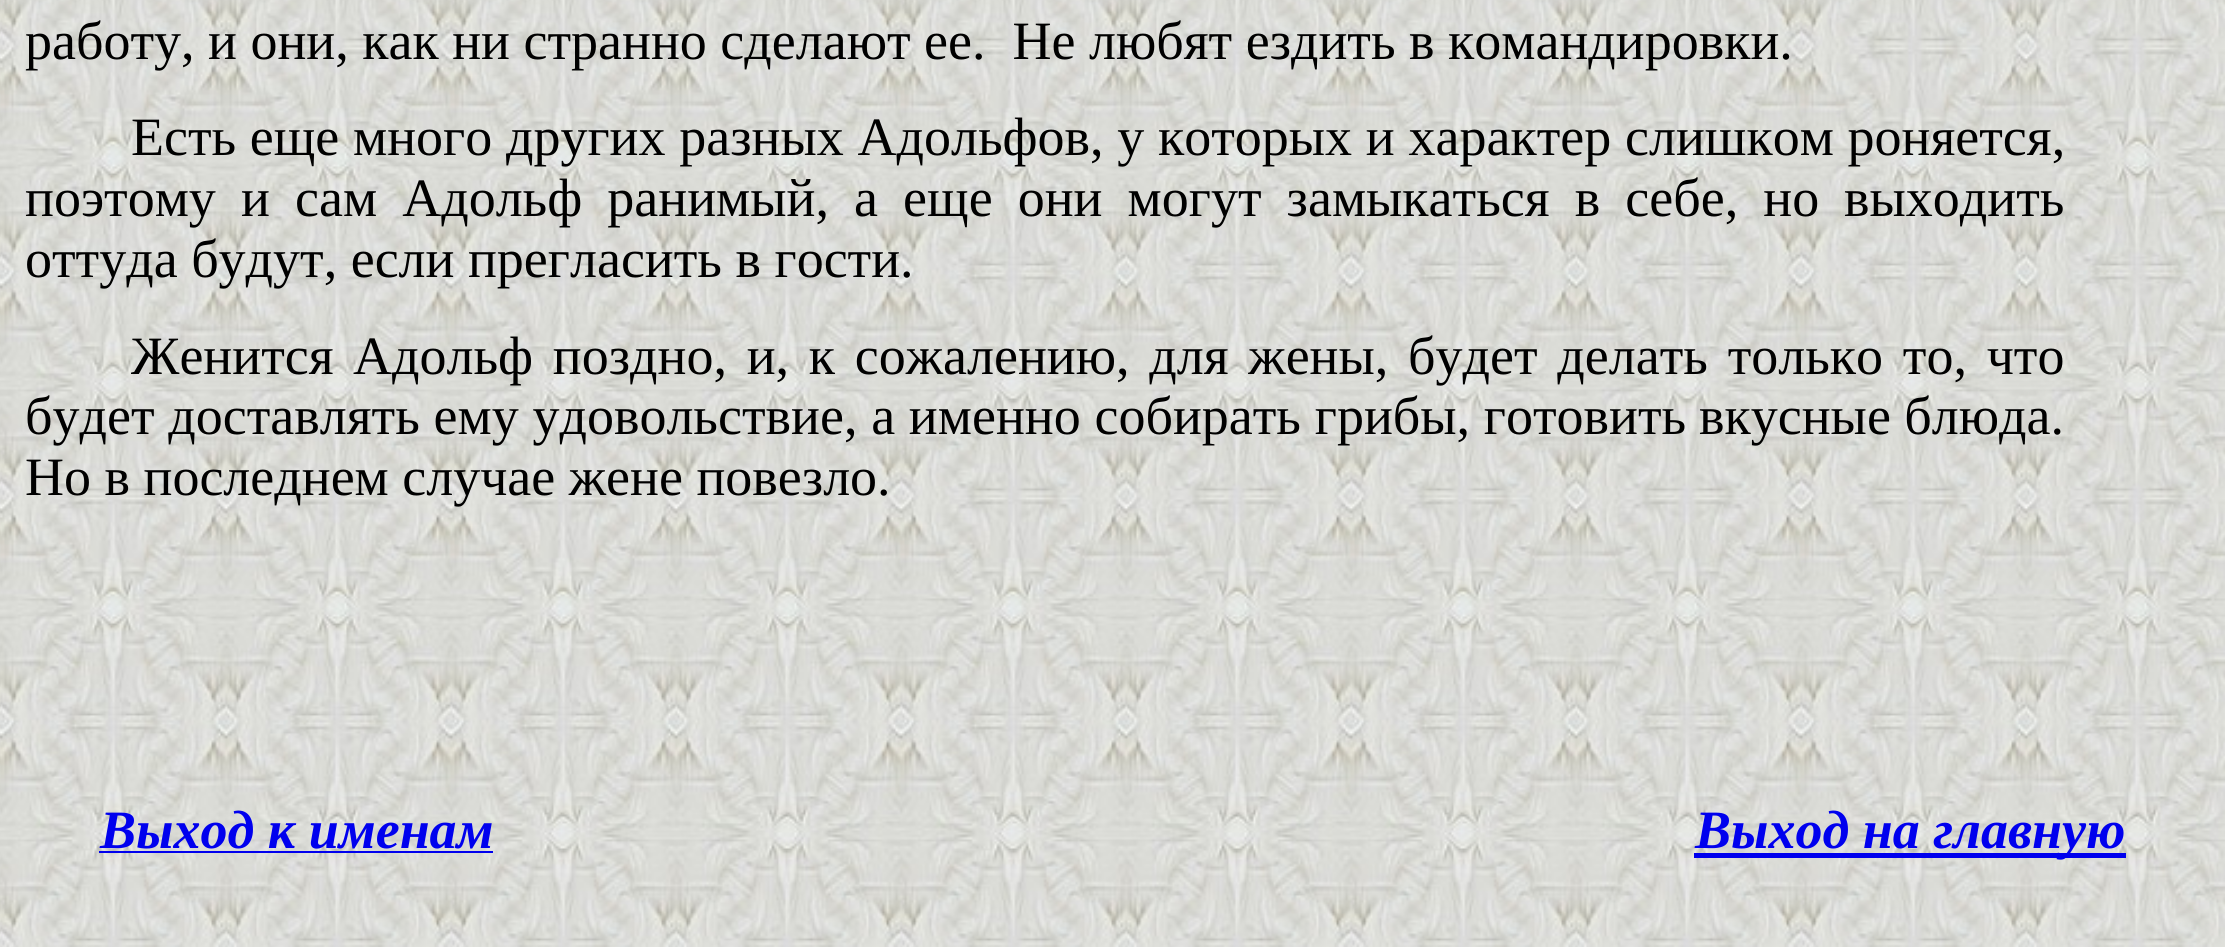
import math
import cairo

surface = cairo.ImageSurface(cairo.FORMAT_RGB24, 2225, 947)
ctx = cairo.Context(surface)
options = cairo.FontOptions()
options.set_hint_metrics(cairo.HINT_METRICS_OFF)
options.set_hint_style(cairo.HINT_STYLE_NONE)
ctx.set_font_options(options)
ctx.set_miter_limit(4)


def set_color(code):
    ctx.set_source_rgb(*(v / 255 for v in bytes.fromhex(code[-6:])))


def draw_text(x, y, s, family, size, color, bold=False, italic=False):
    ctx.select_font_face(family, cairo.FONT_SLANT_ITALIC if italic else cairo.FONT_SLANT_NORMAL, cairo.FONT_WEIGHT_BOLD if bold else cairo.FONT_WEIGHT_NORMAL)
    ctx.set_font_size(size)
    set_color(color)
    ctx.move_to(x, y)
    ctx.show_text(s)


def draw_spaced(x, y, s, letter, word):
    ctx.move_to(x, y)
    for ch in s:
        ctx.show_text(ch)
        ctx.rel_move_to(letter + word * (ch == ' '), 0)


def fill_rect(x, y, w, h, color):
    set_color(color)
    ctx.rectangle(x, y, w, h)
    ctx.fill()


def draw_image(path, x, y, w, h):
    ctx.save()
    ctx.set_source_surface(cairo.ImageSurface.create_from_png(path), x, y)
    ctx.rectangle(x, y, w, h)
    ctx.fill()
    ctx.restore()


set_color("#ffffff")
ctx.paint()
draw_image("assets/img1.png", 0, 0, 2225, 947)
draw_text(25, 59, "работу, и они, как ни странно сделают ее.  Не любят ездить в командировки.", "Liberation Serif", 54, "#000000")
draw_text(131, 155, "Есть еще", "Liberation Serif", 54, "#000000")
draw_spaced(353, 155, "много других разных Адольфов, у которых и характер слишком роняется,", 0, 0.25)
draw_spaced(25, 216, "поэтому и сам Адольф ранимый, а еще они могут замыкаться в себе, но", 0, 11.6)
draw_text(1844, 216, "выходить", "Liberation Serif", 54, "#000000")
draw_text(25, 277, "оттуда будут, если прегласить в гости.", "Liberation Serif", 54, "#000000")
draw_text(131, 374, "Женится", "Liberation Serif", 54, "#000000")
draw_spaced(353, 374, "Адольф поздно, и, к сожалению, для жены, будет делать только то, что", 0, 6.25)
draw_spaced(25, 434, "будет доставлять ему удовольствие, а именно собирать грибы, готовить", 0, 0.25)
draw_text(1699, 434, "вкусные блюда.", "Liberation Serif", 54, "#000000")
draw_text(25, 495, "Но в последнем случае жене повезло.", "Liberation Serif", 54, "#000000")
draw_text(100, 848, "Выход к именам", "Liberation Serif", 54, "#0000ee", bold=True, italic=True)
fill_rect(99, 851, 394, 2, "#0000ee")
fill_rect(1694, 853, 432, 5, "#0000ee")
draw_text(1695, 848, "Выход на главную", "Liberation Serif", 54, "#0000ee", bold=True, italic=True)
surface.write_to_png("output.png")
